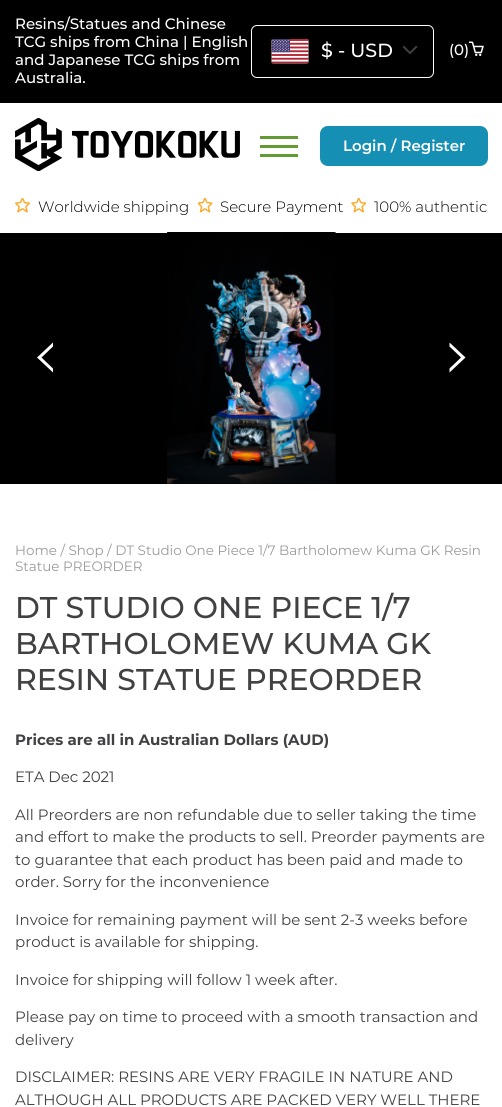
import math
import cairo

surface = cairo.ImageSurface(cairo.FORMAT_RGB24, 502, 1107)
ctx = cairo.Context(surface)
options = cairo.FontOptions()
options.set_hint_metrics(cairo.HINT_METRICS_OFF)
options.set_hint_style(cairo.HINT_STYLE_NONE)
ctx.set_font_options(options)
ctx.set_miter_limit(4)


def set_color(code):
    ctx.set_source_rgb(*(v / 255 for v in bytes.fromhex(code[-6:])))


def draw_text(x, y, s, family, size, color, bold=False, italic=False):
    ctx.select_font_face(family, cairo.FONT_SLANT_ITALIC if italic else cairo.FONT_SLANT_NORMAL, cairo.FONT_WEIGHT_BOLD if bold else cairo.FONT_WEIGHT_NORMAL)
    ctx.set_font_size(size)
    set_color(color)
    ctx.move_to(x, y)
    ctx.show_text(s)


def fill_rect(x, y, w, h, color):
    set_color(color)
    ctx.rectangle(x, y, w, h)
    ctx.fill()


def rounded_rect(x, y, w, h, r):
    ctx.new_sub_path()
    for i, (u, v) in enumerate([(x + w - r, y + h - r), (x + r, y + h - r), (x + r, y + r), (x + w - r, y + r)]):
        ctx.arc(u, v, r, i * math.pi / 2, (i + 1) * math.pi / 2)
    ctx.close_path()


def draw_image(path, x, y, w, h):
    ctx.save()
    ctx.set_source_surface(cairo.ImageSurface.create_from_png(path), x, y)
    ctx.rectangle(x, y, w, h)
    ctx.fill()
    ctx.restore()


set_color("#ffffff")
ctx.paint()
fill_rect(0, 0, 502, 103, "#000000")
draw_text(15, 29, "Resins/Statues and Chinese", "Montserrat Medium", 15, "#ffffff")
draw_text(15, 47, "TCG ships from China | English", "Montserrat Medium", 15, "#ffffff")
draw_text(15, 65, "and Japanese TCG ships from", "Montserrat Medium", 15, "#ffffff")
draw_text(15, 83, "Australia.", "Montserrat Medium", 15, "#ffffff")
rounded_rect(251.5, 25.5, 182, 52, 5.5)
ctx.set_line_width(1)
ctx.stroke()
draw_image("assets/img1.png", 271, 39, 38, 25)
draw_text(321, 57, "$ - USD", "Montserrat Medium", 19, "#ffffff")
draw_image("assets/img2.png", 403, 45, 15, 10)
draw_text(449, 55, "(0)", "Montserrat Medium", 15, "#ffffff")
draw_image("assets/img3.png", 469, 41, 15, 15)
draw_image("assets/img4.png", 15, 118, 225, 53)
fill_rect(260, 145, 38, 3, "#629b34")
fill_rect(260, 136, 38, 3, "#629b34")
fill_rect(260, 154, 38, 3, "#629b34")
set_color("#158fb3")
rounded_rect(320, 126, 168, 40, 8)
ctx.fill()
draw_text(343, 151, "Login / Register", "Montserrat SemiBold", 15, "#ffffff")
draw_image("assets/img5.png", 15, 198, 15, 15)
draw_text(38, 212, "Worldwide shipping", "Montserrat Light", 15, "#000000")
draw_image("assets/img6.png", 198, 198, 15, 15)
draw_text(220, 212, "Secure Payment", "Montserrat Light", 15, "#000000")
draw_image("assets/img7.png", 351, 198, 15, 15)
draw_text(374, 212, "100% authentic", "Montserrat Light", 15, "#000000")
fill_rect(0, 233, 502, 251, "#000000")
set_color("#ffffff")
ctx.new_path()
ctx.move_to(53, 346.5)
ctx.line_to(53, 342.5)
ctx.line_to(37, 357.5)
ctx.line_to(53, 372.5)
ctx.line_to(53, 368.5)
ctx.line_to(41.5, 357.5)
ctx.close_path()
ctx.fill()
draw_image("assets/img8.png", 167, 232, 169, 252)
ctx.new_path()
ctx.move_to(461, 357.5)
ctx.line_to(449.5, 368.5)
ctx.line_to(449.5, 372.5)
ctx.line_to(465.5, 357.5)
ctx.line_to(449.5, 342.5)
ctx.line_to(449.5, 346.5)
ctx.close_path()
ctx.fill()
draw_text(15, 555, "Home / Shop / DT Studio One Piece 1/7 Bartholomew Kuma GK Resin", "Montserrat", 13.5, "#9a9a9a")
draw_text(15, 571, "Statue PREORDER", "Montserrat", 13.5, "#9a9a9a")
draw_text(15, 618, "DT STUDIO ONE PIECE 1/7", "Montserrat Medium", 30, "#414042")
draw_text(15, 654, "BARTHOLOMEW KUMA GK", "Montserrat Medium", 30, "#414042")
draw_text(15, 690, "RESIN STATUE PREORDER", "Montserrat Medium", 30, "#414042")
draw_text(15, 745, "Prices are all in Australian Dollars (AUD)", "Montserrat", 15, "#414042", bold=True)
draw_text(15, 782, "ETA Dec 2021", "Montserrat", 15, "#414042")
draw_text(15, 820, "All Preorders are non refundable due to seller taking the time", "Montserrat", 15, "#414042")
draw_text(15, 842, "and effort to make the products to sell. Preorder payments are", "Montserrat", 15, "#414042")
draw_text(15, 865, "to guarantee that each product has been paid and made to", "Montserrat", 15, "#414042")
draw_text(15, 887, "order. Sorry for the inconvenience", "Montserrat", 15, "#414042")
draw_text(15, 925, "Invoice for remaining payment will be sent 2-3 weeks before", "Montserrat", 15, "#414042")
draw_text(15, 947, "product is available for shipping.", "Montserrat", 15, "#414042")
draw_text(15, 985, "Invoice for shipping will follow 1 week after.", "Montserrat", 15, "#414042")
draw_text(15, 1022, "Please pay on time to proceed with a smooth transaction and", "Montserrat", 15, "#414042")
draw_text(15, 1045, "delivery", "Montserrat", 15, "#414042")
draw_text(15, 1082, "DISCLAIMER: RESINS ARE VERY FRAGILE IN NATURE AND", "Montserrat", 15, "#414042")
draw_text(15, 1105, "ALTHOUGH ALL PRODUCTS ARE PACKED VERY WELL THERE", "Montserrat", 15, "#414042")
surface.write_to_png("output.png")
